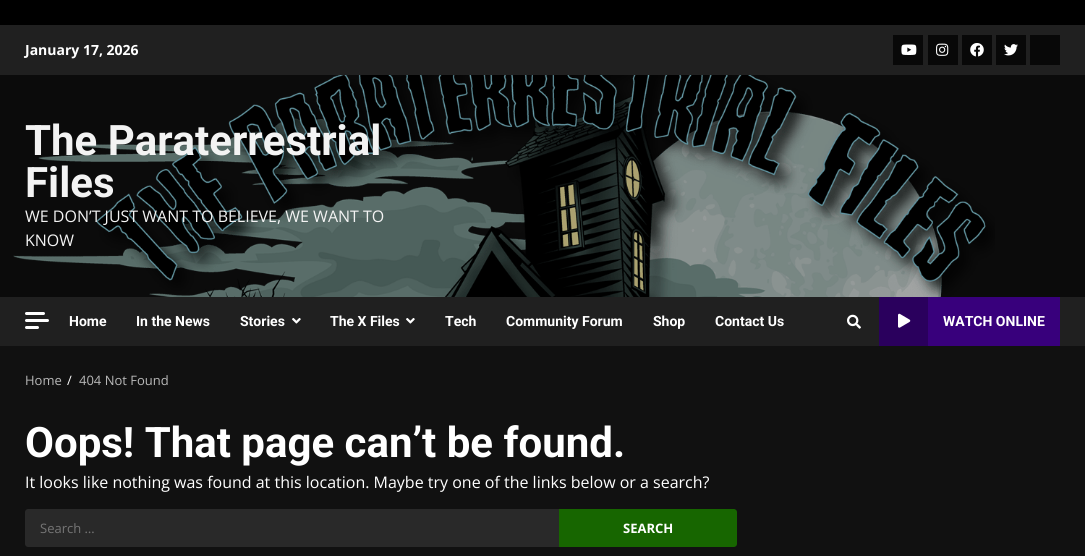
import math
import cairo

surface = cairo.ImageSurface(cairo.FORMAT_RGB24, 1085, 556)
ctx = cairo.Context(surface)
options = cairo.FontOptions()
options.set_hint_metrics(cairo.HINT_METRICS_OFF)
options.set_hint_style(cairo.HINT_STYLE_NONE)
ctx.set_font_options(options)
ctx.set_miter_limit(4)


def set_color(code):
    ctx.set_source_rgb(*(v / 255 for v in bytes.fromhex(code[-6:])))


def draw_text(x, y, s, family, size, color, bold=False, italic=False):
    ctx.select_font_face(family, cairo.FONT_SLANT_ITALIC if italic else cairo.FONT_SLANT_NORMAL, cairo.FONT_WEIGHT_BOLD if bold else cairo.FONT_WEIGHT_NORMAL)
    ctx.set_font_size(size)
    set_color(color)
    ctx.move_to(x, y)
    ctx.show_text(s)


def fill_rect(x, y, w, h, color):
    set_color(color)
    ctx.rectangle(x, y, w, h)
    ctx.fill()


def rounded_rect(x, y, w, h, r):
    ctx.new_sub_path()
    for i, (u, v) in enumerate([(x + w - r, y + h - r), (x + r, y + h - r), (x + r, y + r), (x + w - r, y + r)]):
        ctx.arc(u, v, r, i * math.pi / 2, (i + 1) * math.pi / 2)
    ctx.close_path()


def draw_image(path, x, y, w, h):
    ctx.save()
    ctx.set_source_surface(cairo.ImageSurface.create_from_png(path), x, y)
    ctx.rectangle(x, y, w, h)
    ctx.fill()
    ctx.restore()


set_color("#000000")
ctx.paint()
fill_rect(0, 346, 1085, 210, "#111111")
fill_rect(0, 75, 1085, 222, "#0b0b0b")
fill_rect(0, 25, 1085, 50, "#202020")
draw_text(25, 55, "January 17, 2026", "Open Sans", 14, "#ffffff", bold=True)
fill_rect(893, 35, 30, 30, "#080808")
draw_image("assets/img1.png", 901, 44, 16, 11)
fill_rect(928, 35, 30, 30, "#080808")
draw_image("assets/img2.png", 936, 43, 13, 13)
fill_rect(962, 35, 30, 30, "#080808")
draw_image("assets/img3.png", 970, 43, 14, 14)
fill_rect(996, 35, 30, 30, "#080808")
draw_image("assets/img4.png", 1004, 44, 14, 12)
fill_rect(1030, 35, 30, 30, "#080808")
draw_image("assets/img5.png", 13, 75, 982, 222)
draw_text(25, 155, "The Paraterrestrial", "Roboto", 42, "#f3f3f3", bold=True)
draw_text(25, 197, "Files", "Roboto", 42, "#f3f3f3", bold=True)
draw_text(25, 222, "WE DON’T JUST WANT TO BELIEVE, WE WANT TO", "Open Sans", 16, "#f3f3f3")
draw_text(25, 246, "KNOW", "Open Sans", 16, "#f3f3f3")
fill_rect(0, 297, 1085, 49, "#202020")
set_color("#ffffff")
rounded_rect(25, 312, 20, 3, 1.5)
ctx.fill()
rounded_rect(25, 319, 24, 3, 1.5)
ctx.fill()
rounded_rect(25, 326, 14, 3, 1.5)
ctx.fill()
draw_text(69, 326, "Home", "Roboto", 14, "#ffffff", bold=True)
draw_text(136, 326, "In the News", "Roboto", 14, "#ffffff", bold=True)
draw_text(240, 326, "Stories", "Roboto", 14, "#ffffff", bold=True)
draw_image("assets/img6.png", 292, 318, 9, 6)
draw_text(330, 326, "The X Files", "Roboto", 14, "#ffffff", bold=True)
draw_image("assets/img6.png", 406, 318, 9, 6)
draw_text(445, 326, "Tech", "Roboto", 14, "#ffffff", bold=True)
draw_text(506, 326, "Community Forum", "Roboto", 14, "#ffffff", bold=True)
draw_text(653, 326, "Shop", "Roboto", 14, "#ffffff", bold=True)
draw_text(715, 326, "Contact Us", "Roboto", 14, "#ffffff", bold=True)
draw_image("assets/img7.png", 847, 314, 14, 15)
fill_rect(928, 297, 132, 49, "#38007c")
fill_rect(879, 297, 49, 49, "#2a005d")
draw_image("assets/img8.png", 898, 313, 13, 15)
draw_text(943, 326, "WATCH ONLINE", "Roboto", 14, "#ffffff", bold=True)
draw_text(25, 385, "Home", "Open Sans", 13, "#b8b8b8")
draw_text(67, 385, "/", "Open Sans", 13, "#ffffff")
draw_text(79, 385, "404 Not Found", "Open Sans", 13, "#b8b8b8")
draw_text(25, 457, "Oops! That page can’t be found.", "Roboto", 42, "#ffffff", bold=True)
draw_text(25, 488, "It looks like nothing was found at this location. Maybe try one of the links below or a search?", "Open Sans", 16, "#ffffff")
set_color("#292929")
ctx.new_path()
ctx.move_to(28, 509)
ctx.line_to(559, 509)
ctx.line_to(559, 547)
ctx.line_to(28, 547)
ctx.curve_to(26.5, 547, 25, 545.5, 25, 544)
ctx.line_to(25, 512)
ctx.curve_to(25, 510.5, 26.5, 509, 28, 509)
ctx.close_path()
ctx.fill()
draw_text(40, 533, "Search …", "Open Sans", 13, "#757575")
set_color("#176600")
ctx.new_path()
ctx.move_to(559, 509)
ctx.line_to(734, 509)
ctx.curve_to(735.5, 509, 737, 510.5, 737, 512)
ctx.line_to(737, 544)
ctx.curve_to(737, 545.5, 735.5, 547, 734, 547)
ctx.line_to(559, 547)
ctx.close_path()
ctx.fill()
draw_text(623, 533, "SEARCH", "Open Sans", 13, "#ffffff", bold=True)
surface.write_to_png("output.png")
